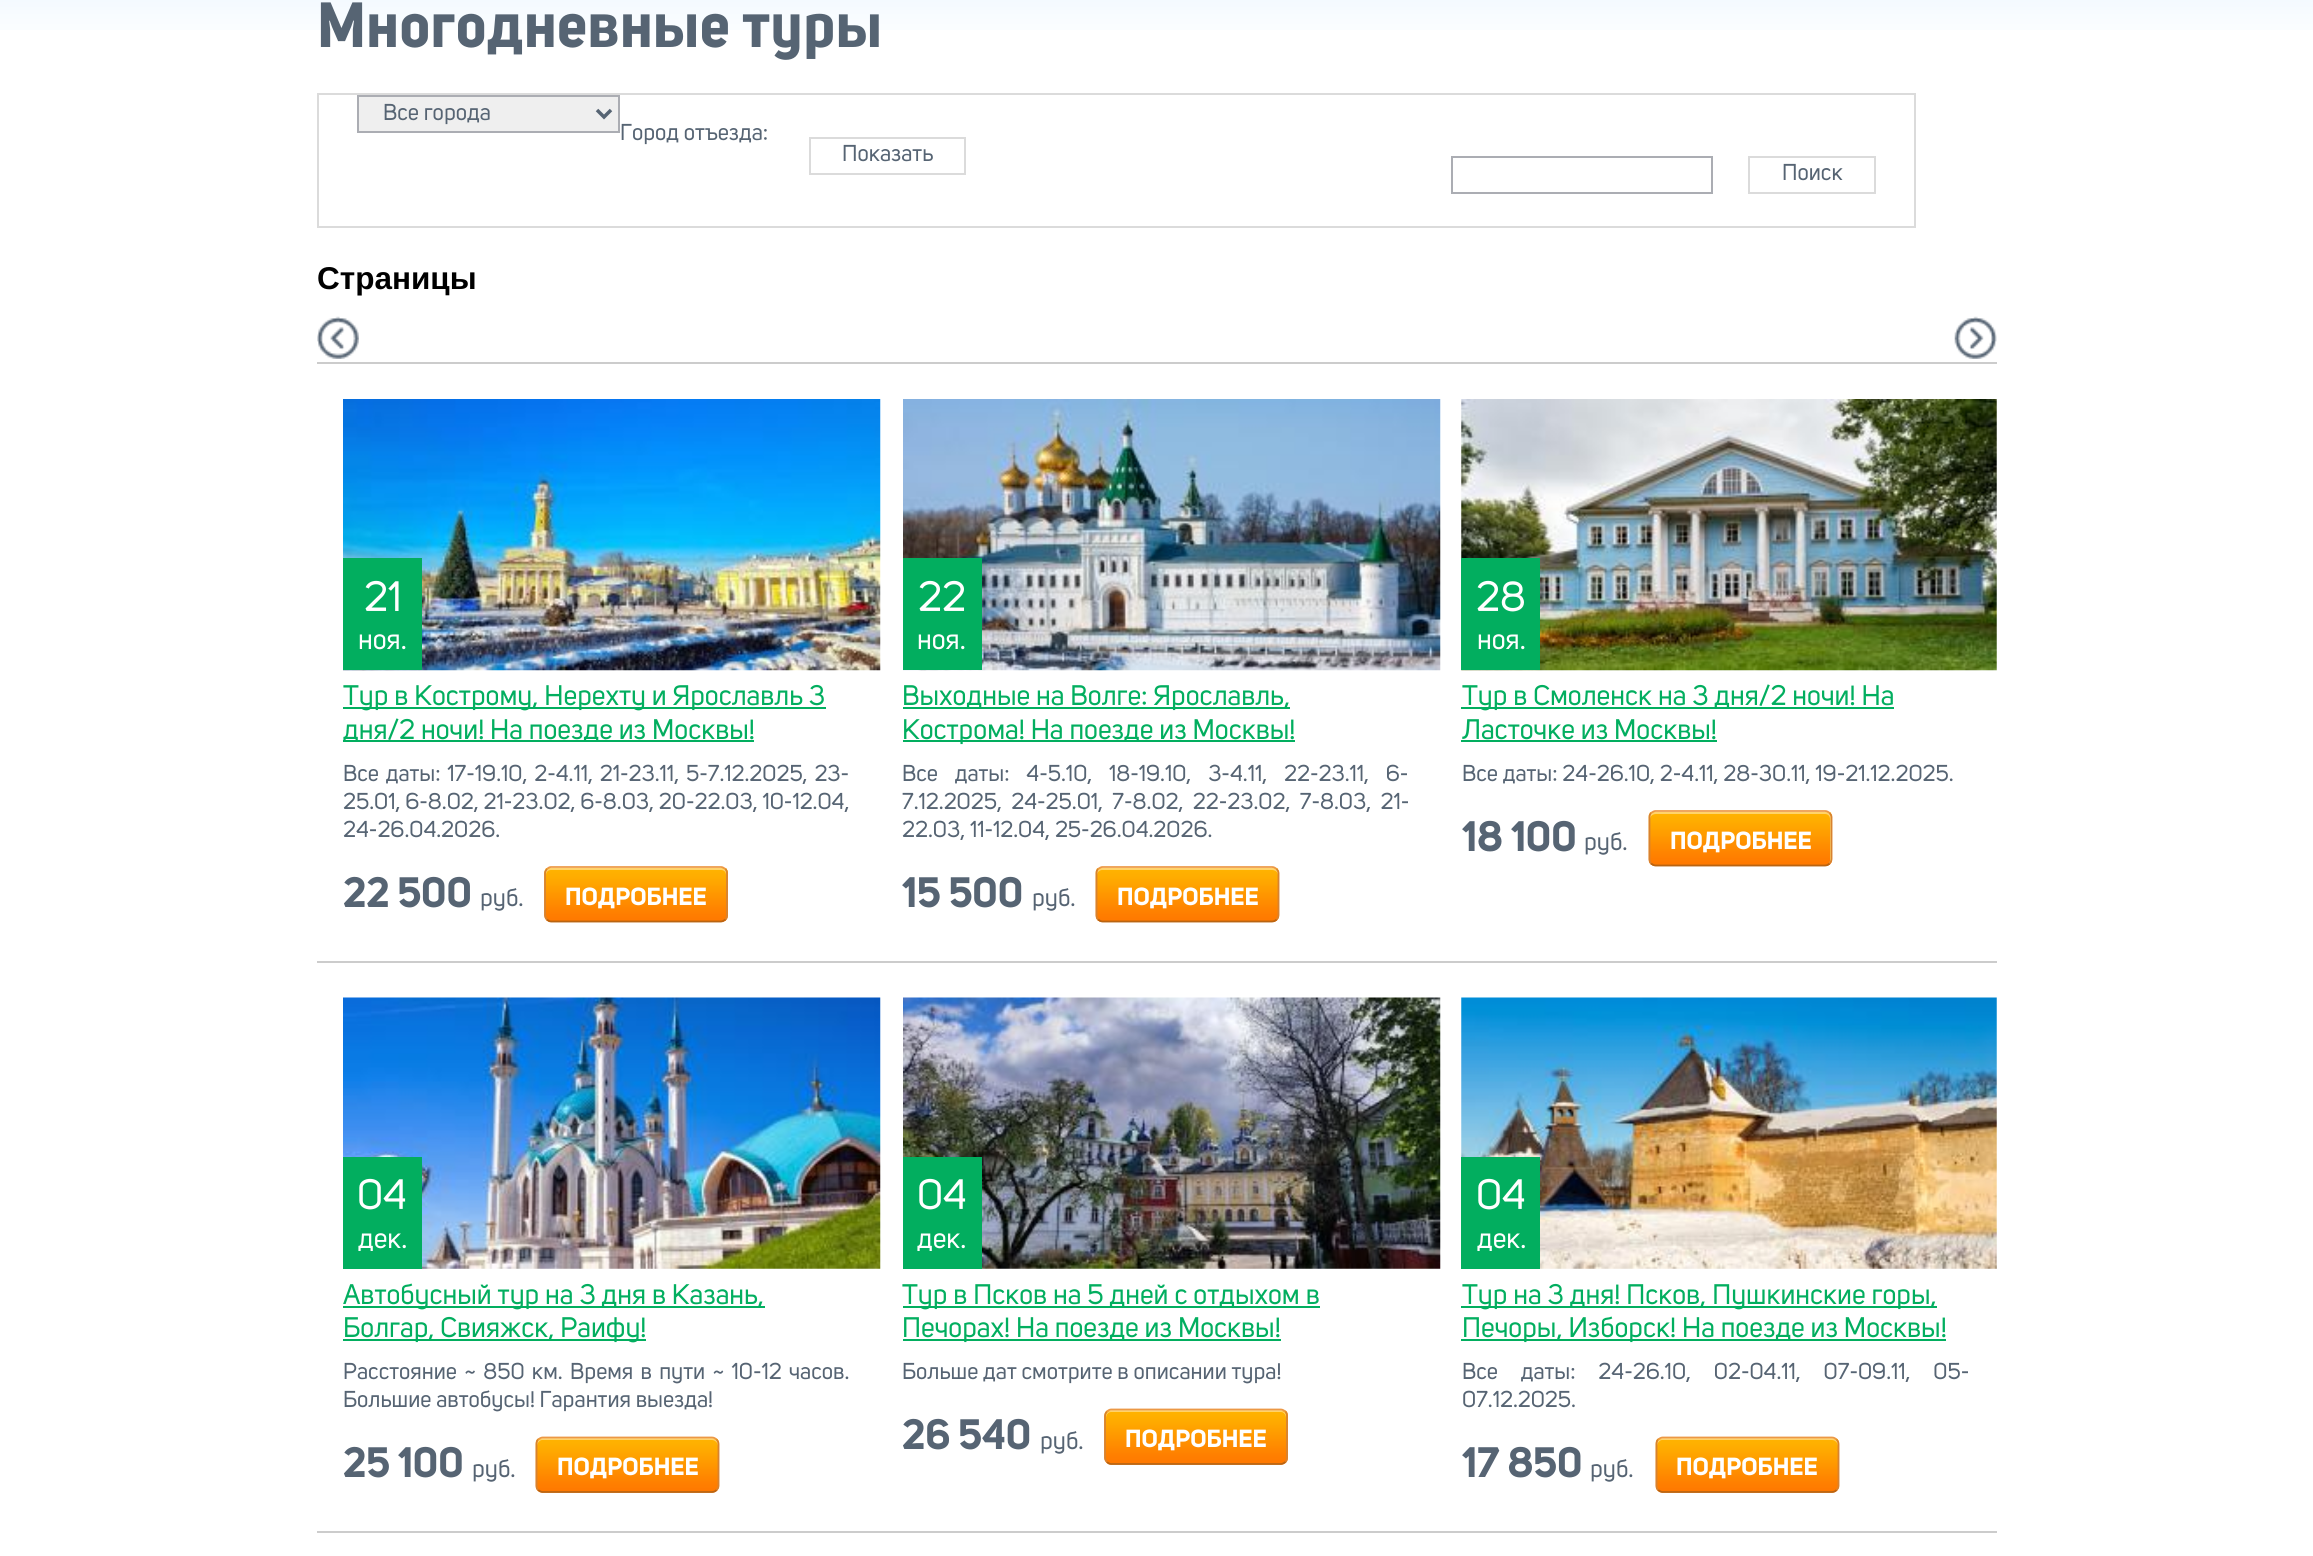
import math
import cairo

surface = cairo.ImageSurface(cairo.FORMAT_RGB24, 2313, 1556)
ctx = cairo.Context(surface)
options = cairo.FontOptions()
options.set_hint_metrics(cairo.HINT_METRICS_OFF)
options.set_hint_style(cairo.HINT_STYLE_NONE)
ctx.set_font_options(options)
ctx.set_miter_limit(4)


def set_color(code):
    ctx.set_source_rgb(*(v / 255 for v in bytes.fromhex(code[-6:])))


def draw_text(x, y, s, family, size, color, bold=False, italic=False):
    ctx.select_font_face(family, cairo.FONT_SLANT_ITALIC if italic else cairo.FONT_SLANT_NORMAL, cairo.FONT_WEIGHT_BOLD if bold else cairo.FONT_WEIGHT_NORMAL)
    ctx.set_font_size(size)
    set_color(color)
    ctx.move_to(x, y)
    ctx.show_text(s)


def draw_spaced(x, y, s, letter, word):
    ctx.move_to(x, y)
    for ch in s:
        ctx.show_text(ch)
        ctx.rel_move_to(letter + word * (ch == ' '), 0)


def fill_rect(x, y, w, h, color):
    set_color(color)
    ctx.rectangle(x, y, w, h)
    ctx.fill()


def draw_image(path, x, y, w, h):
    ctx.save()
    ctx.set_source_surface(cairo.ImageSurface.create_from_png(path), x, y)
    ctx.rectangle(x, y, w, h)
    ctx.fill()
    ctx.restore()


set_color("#ffffff")
ctx.paint()
draw_image("assets/img1.png", 0, 0, 2313, 30)
draw_text(317, 47, "Многодневные туры", "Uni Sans", 63, "#566473", bold=True)
ctx.rectangle(318, 94, 1597, 133)
set_color("#dbdbdb")
ctx.stroke()
set_color("#efefef")
ctx.rectangle(358, 96, 261, 36)
ctx.fill_preserve()
set_color("#abadb3")
ctx.stroke()
ctx.new_path()
ctx.move_to(597, 110)
ctx.line_to(604, 117)
ctx.line_to(611, 110)
set_color("#566473")
ctx.set_line_width(3.5)
ctx.stroke()
draw_text(383, 120, "Все города", "Uni Sans", 22.75, "#566473")
draw_text(620, 140, "Город отъезда:", "Uni Sans", 22.75, "#566473")
ctx.rectangle(810, 138, 155, 36)
set_color("#dbdbdb")
ctx.set_line_width(2)
ctx.stroke()
draw_text(842, 161, "Показать", "Uni Sans", 22.75, "#566473")
ctx.rectangle(1452, 157, 260, 36)
set_color("#abadb3")
ctx.stroke()
ctx.rectangle(1749, 157, 126, 36)
set_color("#dbdbdb")
ctx.stroke()
draw_text(1782, 180, "Поиск", "Uni Sans", 22.75, "#566473")
draw_text(317, 289, "Страницы", "Liberation Sans", 31.5, "#000000", bold=True)
fill_rect(317, 362, 1680, 2, "#cccccc")
draw_image("assets/img2.png", 317, 316, 42, 43)
draw_image("assets/img3.png", 1954, 316, 43, 43)
draw_image("assets/img4.png", 343, 399, 538, 272)
fill_rect(343, 558, 79, 112, "#02ae5f")
draw_text(364, 611, "21", "Uni Sans", 42, "#ffffff")
draw_text(358, 649, "ноя.", "Uni Sans", 28, "#ffffff")
fill_rect(343, 707, 483, 2, "#02ae5f")
draw_text(343, 705, "Тур в Кострому, Нерехту и Ярославль 3", "Uni Sans", 28, "#02ae5f")
fill_rect(343, 740, 411, 2, "#02ae5f")
draw_text(343, 739, "дня/2 ночи! На поезде из Москвы!", "Uni Sans", 28, "#02ae5f")
ctx.set_font_size(22.75)
set_color("#566473")
draw_spaced(343, 781, "Все даты: 17-19.10, 2-4.11, 21-23.11, 5-7.12.2025, 23-", 0, 2)
draw_text(343, 809, "25.01, 6-8.02, 21-23.02, 6-8.03, 20-22.03, 10-12.04,", "Uni Sans", 22.75, "#566473")
draw_text(343, 837, "24-26.04.2026.", "Uni Sans", 22.75, "#566473")
draw_text(343, 907, "22 500", "Uni Sans", 42, "#566473", bold=True)
draw_text(480, 906, "руб.", "Uni Sans", 24.5, "#566473")
draw_image("assets/img5.png", 544, 868, 184, 55)
set_color("#ffd36b")
ctx.new_path()
ctx.move_to(551, 870)
ctx.line_to(721, 870)
ctx.curve_to(724, 870, 726, 872, 726, 875)
ctx.line_to(726, 873)
ctx.curve_to(726, 870, 724, 868, 721, 868)
ctx.line_to(551, 868)
ctx.curve_to(548, 868, 546, 870, 546, 873)
ctx.line_to(546, 875)
ctx.curve_to(546, 872, 548, 870, 551, 870)
ctx.close_path()
ctx.fill()
ctx.new_path()
ctx.move_to(547, 869)
ctx.curve_to(548, 868, 549.5, 867, 551, 867)
ctx.line_to(721, 867)
ctx.curve_to(722.5, 867, 724, 868, 725.5, 869)
set_color("#ec9845")
ctx.set_line_width(1.8)
ctx.stroke()
ctx.new_path()
ctx.move_to(725.5, 869)
ctx.curve_to(726.5, 870, 727, 871.5, 727, 873)
ctx.line_to(727, 915)
ctx.curve_to(727, 917, 726.5, 918.5, 725.5, 919.5)
set_color("#d78230")
ctx.stroke()
ctx.new_path()
ctx.move_to(725.5, 919.5)
ctx.curve_to(724, 920.5, 722.5, 921.5, 721, 921.5)
ctx.line_to(551, 921.5)
ctx.curve_to(549.5, 921.5, 548, 920.5, 547, 919.5)
set_color("#b96412")
ctx.stroke()
ctx.new_path()
ctx.move_to(547, 919.5)
ctx.curve_to(546, 918.5, 545, 917, 545, 915)
ctx.line_to(545, 873)
ctx.curve_to(545, 871.5, 546, 870, 547, 869)
set_color("#d78230")
ctx.stroke()
draw_text(565, 905, "ПОДРОБНЕЕ", "Uni Sans", 24.5, "#ffffff", bold=True)
draw_image("assets/img6.png", 903, 399, 538, 272)
fill_rect(903, 558, 79, 112, "#02ae5f")
draw_text(918, 611, "22", "Uni Sans", 42, "#ffffff")
draw_text(917, 649, "ноя.", "Uni Sans", 28, "#ffffff")
fill_rect(903, 707, 387, 2, "#02ae5f")
draw_text(902, 705, "Выходные на Волге: Ярославль,", "Uni Sans", 28, "#02ae5f")
fill_rect(903, 740, 392, 2, "#02ae5f")
draw_text(902, 739, "Кострома! На поезде из Москвы!", "Uni Sans", 28, "#02ae5f")
ctx.set_font_size(22.75)
set_color("#566473")
draw_spaced(902, 781, "Все даты: 4-5.10, 18-19.10, 3-4.11, 22-23.11, 6-", 0, 12)
draw_spaced(902, 809, "7.12.2025, 24-25.01, 7-8.02, 22-23.02, 7-8.03, 21-", 0, 4.5)
draw_text(902, 837, "22.03, 11-12.04, 25-26.04.2026.", "Uni Sans", 22.75, "#566473")
draw_text(902, 907, "15 500", "Uni Sans", 42, "#566473", bold=True)
draw_text(1032, 906, "руб.", "Uni Sans", 24.5, "#566473")
draw_image("assets/img7.png", 1095, 868, 185, 55)
set_color("#ffd36b")
ctx.new_path()
ctx.move_to(1102, 870)
ctx.line_to(1272, 870)
ctx.curve_to(1275, 870, 1278, 872, 1278, 875)
ctx.line_to(1278, 873)
ctx.curve_to(1278, 870, 1276, 868, 1273, 868)
ctx.line_to(1102, 868)
ctx.curve_to(1099, 868, 1097, 870, 1097, 873)
ctx.line_to(1097, 875)
ctx.curve_to(1097, 872, 1100, 870, 1102, 870)
ctx.close_path()
ctx.fill()
ctx.new_path()
ctx.move_to(1098, 869)
ctx.curve_to(1099.5, 868, 1101, 867, 1102.5, 867)
ctx.line_to(1272, 867)
ctx.curve_to(1274, 867, 1275.5, 868, 1276.5, 869)
set_color("#ec9845")
ctx.stroke()
ctx.new_path()
ctx.move_to(1276.5, 869)
ctx.curve_to(1277.5, 870, 1278.5, 871.5, 1278.5, 873)
ctx.line_to(1278.5, 915)
ctx.curve_to(1278.5, 917, 1277.5, 918.5, 1276.5, 919.5)
set_color("#d78230")
ctx.stroke()
ctx.new_path()
ctx.move_to(1276.5, 919.5)
ctx.curve_to(1275.5, 920.5, 1274, 921.5, 1272, 921.5)
ctx.line_to(1102.5, 921.5)
ctx.curve_to(1101, 921.5, 1099.5, 920.5, 1098, 919.5)
set_color("#b96412")
ctx.stroke()
ctx.new_path()
ctx.move_to(1098, 919.5)
ctx.curve_to(1097, 918.5, 1096.5, 917, 1096.5, 915)
ctx.line_to(1096.5, 873)
ctx.curve_to(1096.5, 871.5, 1097, 870, 1098, 869)
set_color("#d78230")
ctx.stroke()
draw_text(1117, 905, "ПОДРОБНЕЕ", "Uni Sans", 24.5, "#ffffff", bold=True)
draw_image("assets/img8.png", 1461, 399, 536, 272)
fill_rect(1461, 558, 79, 112, "#02ae5f")
draw_text(1476, 611, "28", "Uni Sans", 42, "#ffffff")
draw_text(1477, 649, "ноя.", "Uni Sans", 28, "#ffffff")
fill_rect(1461, 707, 433, 2, "#02ae5f")
draw_text(1462, 705, "Тур в Смоленск на 3 дня/2 ночи! На", "Uni Sans", 28, "#02ae5f")
draw_text(1462, 739, "Ласточке из Москвы!", "Uni Sans", 28, "#02ae5f")
fill_rect(1461, 740, 256, 2, "#02ae5f")
draw_text(1462, 781, "Все даты: 24-26.10, 2-4.11, 28-30.11, 19-21.12.2025.", "Uni Sans", 22.75, "#566473")
draw_text(1462, 851, "18 100", "Uni Sans", 42, "#566473", bold=True)
draw_text(1584, 850, "руб.", "Uni Sans", 24.5, "#566473")
draw_image("assets/img9.png", 1648, 812, 185, 55)
set_color("#ffd36b")
ctx.new_path()
ctx.move_to(1656, 814)
ctx.line_to(1825, 814)
ctx.curve_to(1828, 814, 1830, 816, 1830, 819)
ctx.line_to(1830, 861)
ctx.line_to(1829, 864)
ctx.curve_to(1830, 863, 1831, 861, 1831, 860)
ctx.line_to(1831, 817)
ctx.curve_to(1831, 814, 1829, 812, 1826, 812)
ctx.line_to(1655, 812)
ctx.curve_to(1652, 812, 1650, 814, 1650, 817)
ctx.line_to(1650, 819)
ctx.curve_to(1650, 816, 1653, 814, 1656, 814)
ctx.close_path()
ctx.fill()
ctx.new_path()
ctx.move_to(1651, 813)
ctx.curve_to(1652.5, 812, 1654, 811, 1655.5, 811)
ctx.line_to(1825, 811)
ctx.curve_to(1827, 811, 1828.5, 812, 1829.5, 813)
set_color("#ec9845")
ctx.stroke()
ctx.new_path()
ctx.move_to(1829.5, 813)
ctx.curve_to(1830.5, 814, 1831.5, 815.5, 1831.5, 817)
ctx.line_to(1831.5, 859)
ctx.curve_to(1831.5, 861, 1830.5, 862.5, 1829.5, 863.5)
set_color("#d78230")
ctx.stroke()
ctx.new_path()
ctx.move_to(1829.5, 863.5)
ctx.curve_to(1828.5, 864.5, 1827, 865.5, 1825, 865.5)
ctx.line_to(1655.5, 865.5)
ctx.curve_to(1654, 865.5, 1652.5, 864.5, 1651, 863.5)
set_color("#b96412")
ctx.stroke()
ctx.new_path()
ctx.move_to(1651, 863.5)
ctx.curve_to(1650, 862.5, 1649.5, 861, 1649.5, 859)
ctx.line_to(1649.5, 817)
ctx.curve_to(1649.5, 815.5, 1650, 814, 1651, 813)
set_color("#d78230")
ctx.stroke()
draw_text(1670, 849, "ПОДРОБНЕЕ", "Uni Sans", 24.5, "#ffffff", bold=True)
fill_rect(317, 961, 1680, 2, "#cccccc")
draw_image("assets/img10.png", 343, 997, 538, 272)
fill_rect(343, 1157, 79, 112, "#02ae5f")
draw_text(357, 1209, "04", "Uni Sans", 42, "#ffffff")
draw_text(358, 1248, "дек.", "Uni Sans", 28, "#ffffff")
fill_rect(343, 1306, 422, 2, "#02ae5f")
draw_text(343, 1304, "Автобусный тур на 3 дня в Казань,", "Uni Sans", 28, "#02ae5f")
fill_rect(343, 1339, 303, 2, "#02ae5f")
draw_text(343, 1337, "Болгар, Свияжск, Раифу!", "Uni Sans", 28, "#02ae5f")
ctx.set_font_size(22.75)
set_color("#566473")
draw_spaced(343, 1379, "Расстояние ~ 850 км.", 0, 2.5)
draw_spaced(570, 1379, "Время в пути ~ 10-12 часов.", 0, 2.5)
draw_text(343, 1407, "Большие автобусы! Гарантия выезда!", "Uni Sans", 22.75, "#566473")
draw_text(343, 1477, "25 100", "Uni Sans", 42, "#566473", bold=True)
draw_text(472, 1477, "руб.", "Uni Sans", 24.5, "#566473")
draw_image("assets/img11.png", 535, 1438, 185, 55)
set_color("#ffd36b")
ctx.new_path()
ctx.move_to(542, 1440)
ctx.line_to(712, 1440)
ctx.curve_to(715, 1440, 718, 1443, 718, 1446)
ctx.line_to(718, 1444)
ctx.curve_to(718, 1441, 716, 1439, 713, 1439)
ctx.line_to(542, 1439)
ctx.curve_to(539, 1439, 537, 1441, 537, 1444)
ctx.line_to(537, 1446)
ctx.curve_to(537, 1443, 540, 1440, 542, 1440)
ctx.close_path()
ctx.fill()
ctx.new_path()
ctx.move_to(538, 1439.5)
ctx.curve_to(539.5, 1438.5, 541, 1437.5, 542.5, 1437.5)
ctx.line_to(712, 1437.5)
ctx.curve_to(714, 1437.5, 715.5, 1438.5, 716.5, 1439.5)
set_color("#ec9845")
ctx.stroke()
ctx.new_path()
ctx.move_to(716.5, 1439.5)
ctx.curve_to(717.5, 1440.5, 718.5, 1442, 718.5, 1444)
ctx.line_to(718.5, 1486)
ctx.curve_to(718.5, 1487.5, 717.5, 1489, 716.5, 1490)
set_color("#d78230")
ctx.stroke()
ctx.new_path()
ctx.move_to(716.5, 1490)
ctx.curve_to(715.5, 1491, 714, 1492, 712, 1492)
ctx.line_to(542.5, 1492)
ctx.curve_to(541, 1492, 539.5, 1491, 538, 1490)
set_color("#b96412")
ctx.stroke()
ctx.new_path()
ctx.move_to(538, 1490)
ctx.curve_to(537, 1489, 536.5, 1487.5, 536.5, 1486)
ctx.line_to(536.5, 1444)
ctx.curve_to(536.5, 1442, 537, 1440.5, 538, 1439.5)
set_color("#d78230")
ctx.stroke()
draw_text(557, 1475, "ПОДРОБНЕЕ", "Uni Sans", 24.5, "#ffffff", bold=True)
draw_image("assets/img12.png", 903, 997, 538, 272)
fill_rect(903, 1157, 79, 112, "#02ae5f")
draw_text(917, 1209, "04", "Uni Sans", 42, "#ffffff")
draw_text(917, 1248, "дек.", "Uni Sans", 28, "#ffffff")
fill_rect(903, 1306, 417, 2, "#02ae5f")
draw_text(902, 1304, "Тур в Псков на 5 дней с отдыхом в", "Uni Sans", 28, "#02ae5f")
fill_rect(903, 1339, 378, 2, "#02ae5f")
draw_text(902, 1337, "Печорах! На поезде из Москвы!", "Uni Sans", 28, "#02ae5f")
draw_text(902, 1379, "Больше дат смотрите в описании тура!", "Uni Sans", 22.75, "#566473")
draw_text(902, 1449, "26 540", "Uni Sans", 42, "#566473", bold=True)
draw_text(1040, 1449, "руб.", "Uni Sans", 24.5, "#566473")
draw_image("assets/img13.png", 1104, 1410, 184, 55)
set_color("#ffd36b")
ctx.new_path()
ctx.move_to(1111, 1412)
ctx.line_to(1281, 1412)
ctx.curve_to(1284, 1412, 1286, 1415, 1286, 1418)
ctx.line_to(1286, 1416)
ctx.curve_to(1286, 1413, 1284, 1411, 1281, 1411)
ctx.line_to(1111, 1411)
ctx.curve_to(1108, 1411, 1106, 1413, 1106, 1416)
ctx.line_to(1106, 1418)
ctx.curve_to(1106, 1415, 1108, 1412, 1111, 1412)
ctx.close_path()
ctx.fill()
ctx.new_path()
ctx.move_to(1107, 1411.5)
ctx.curve_to(1108, 1410.5, 1109.5, 1409.5, 1111, 1409.5)
ctx.line_to(1281, 1409.5)
ctx.curve_to(1282.5, 1409.5, 1284, 1410.5, 1285.5, 1411.5)
set_color("#ec9845")
ctx.stroke()
ctx.new_path()
ctx.move_to(1285.5, 1411.5)
ctx.curve_to(1286.5, 1412.5, 1287, 1414, 1287, 1416)
ctx.line_to(1287, 1458)
ctx.curve_to(1287, 1459.5, 1286.5, 1461, 1285.5, 1462)
set_color("#d78230")
ctx.stroke()
ctx.new_path()
ctx.move_to(1285.5, 1462)
ctx.curve_to(1284, 1463, 1282.5, 1464, 1281, 1464)
ctx.line_to(1111, 1464)
ctx.curve_to(1109.5, 1464, 1108, 1463, 1107, 1462)
set_color("#b96412")
ctx.stroke()
ctx.new_path()
ctx.move_to(1107, 1462)
ctx.curve_to(1106, 1461, 1105, 1459.5, 1105, 1458)
ctx.line_to(1105, 1416)
ctx.curve_to(1105, 1414, 1106, 1412.5, 1107, 1411.5)
set_color("#d78230")
ctx.stroke()
draw_text(1125, 1447, "ПОДРОБНЕЕ", "Uni Sans", 24.5, "#ffffff", bold=True)
draw_image("assets/img14.png", 1461, 997, 536, 272)
fill_rect(1461, 1157, 79, 112, "#02ae5f")
draw_text(1476, 1209, "04", "Uni Sans", 42, "#ffffff")
draw_text(1477, 1248, "дек.", "Uni Sans", 28, "#ffffff")
fill_rect(1461, 1306, 476, 2, "#02ae5f")
draw_text(1462, 1304, "Тур на 3 дня! Псков, Пушкинские горы,", "Uni Sans", 28, "#02ae5f")
fill_rect(1461, 1339, 485, 2, "#02ae5f")
draw_text(1462, 1337, "Печоры, Изборск! На поезде из Москвы!", "Uni Sans", 28, "#02ae5f")
ctx.set_font_size(22.75)
set_color("#566473")
draw_spaced(1462, 1379, "Все даты: 24-26.10, 02-04.11, 07-09.11, 05-", 0, 18)
draw_text(1462, 1407, "07.12.2025.", "Uni Sans", 22.75, "#566473")
draw_text(1462, 1477, "17 850", "Uni Sans", 42, "#566473", bold=True)
draw_text(1590, 1477, "руб.", "Uni Sans", 24.5, "#566473")
draw_image("assets/img11.png", 1655, 1438, 185, 55)
set_color("#ffd36b")
ctx.new_path()
ctx.move_to(1662, 1440)
ctx.line_to(1832, 1440)
ctx.curve_to(1835, 1440, 1838, 1443, 1838, 1446)
ctx.line_to(1838, 1444)
ctx.curve_to(1838, 1441, 1836, 1439, 1833, 1439)
ctx.line_to(1662, 1439)
ctx.curve_to(1659, 1439, 1657, 1441, 1657, 1444)
ctx.line_to(1657, 1446)
ctx.curve_to(1657, 1443, 1660, 1440, 1662, 1440)
ctx.close_path()
ctx.fill()
ctx.new_path()
ctx.move_to(1658, 1439.5)
ctx.curve_to(1659.5, 1438.5, 1661, 1437.5, 1662.5, 1437.5)
ctx.line_to(1832, 1437.5)
ctx.curve_to(1834, 1437.5, 1835.5, 1438.5, 1836.5, 1439.5)
set_color("#ec9845")
ctx.stroke()
ctx.new_path()
ctx.move_to(1836.5, 1439.5)
ctx.curve_to(1837.5, 1440.5, 1838.5, 1442, 1838.5, 1444)
ctx.line_to(1838.5, 1486)
ctx.curve_to(1838.5, 1487.5, 1837.5, 1489, 1836.5, 1490)
set_color("#d78230")
ctx.stroke()
ctx.new_path()
ctx.move_to(1836.5, 1490)
ctx.curve_to(1835.5, 1491, 1834, 1492, 1832, 1492)
ctx.line_to(1662.5, 1492)
ctx.curve_to(1661, 1492, 1659.5, 1491, 1658, 1490)
set_color("#b96412")
ctx.stroke()
ctx.new_path()
ctx.move_to(1658, 1490)
ctx.curve_to(1657, 1489, 1656.5, 1487.5, 1656.5, 1486)
ctx.line_to(1656.5, 1444)
ctx.curve_to(1656.5, 1442, 1657, 1440.5, 1658, 1439.5)
set_color("#d78230")
ctx.stroke()
draw_text(1676, 1475, "ПОДРОБНЕЕ", "Uni Sans", 24.5, "#ffffff", bold=True)
fill_rect(317, 1531, 1680, 2, "#cccccc")
surface.write_to_png("output.png")
